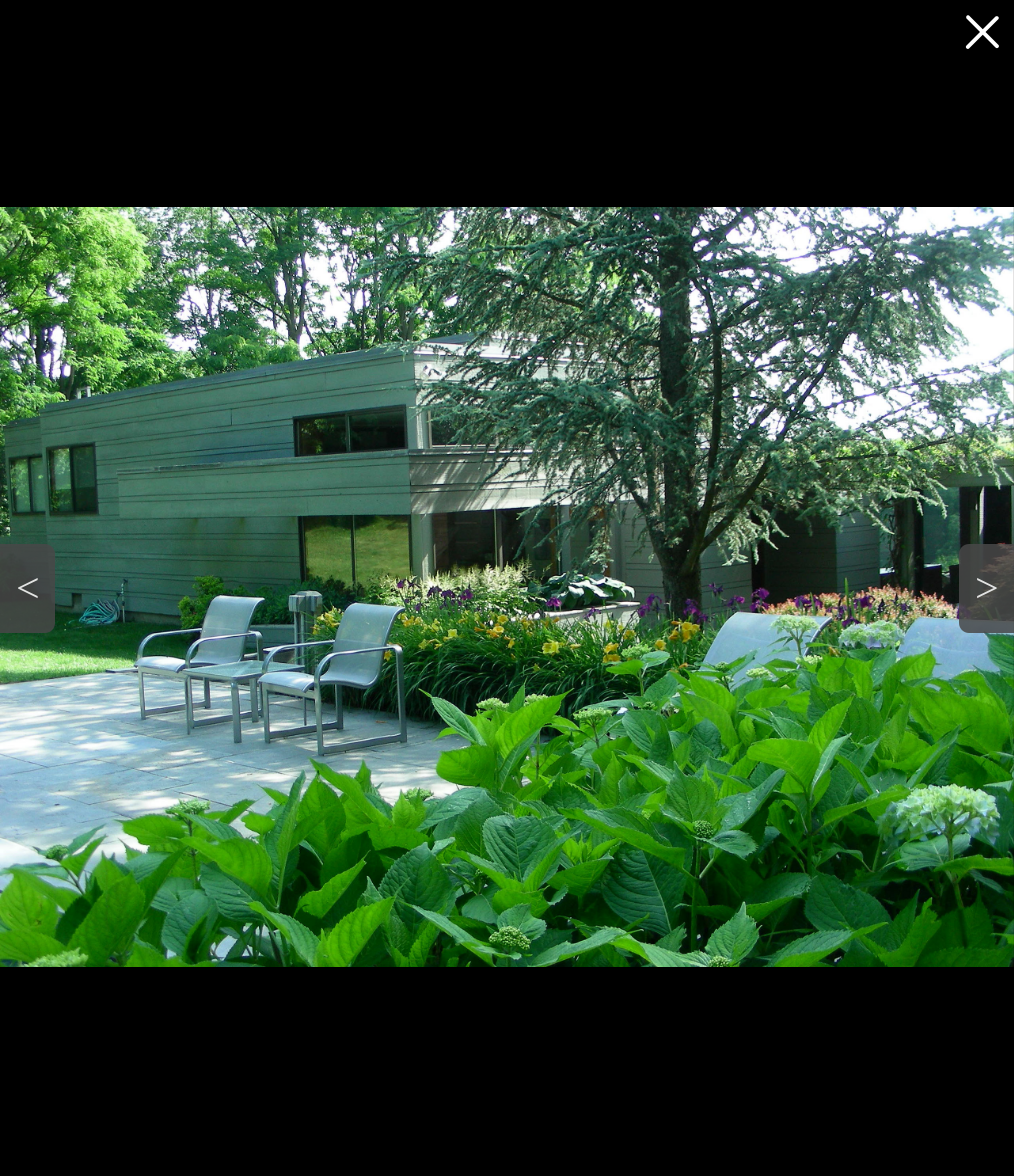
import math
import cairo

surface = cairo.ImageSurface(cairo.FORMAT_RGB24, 1014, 1176)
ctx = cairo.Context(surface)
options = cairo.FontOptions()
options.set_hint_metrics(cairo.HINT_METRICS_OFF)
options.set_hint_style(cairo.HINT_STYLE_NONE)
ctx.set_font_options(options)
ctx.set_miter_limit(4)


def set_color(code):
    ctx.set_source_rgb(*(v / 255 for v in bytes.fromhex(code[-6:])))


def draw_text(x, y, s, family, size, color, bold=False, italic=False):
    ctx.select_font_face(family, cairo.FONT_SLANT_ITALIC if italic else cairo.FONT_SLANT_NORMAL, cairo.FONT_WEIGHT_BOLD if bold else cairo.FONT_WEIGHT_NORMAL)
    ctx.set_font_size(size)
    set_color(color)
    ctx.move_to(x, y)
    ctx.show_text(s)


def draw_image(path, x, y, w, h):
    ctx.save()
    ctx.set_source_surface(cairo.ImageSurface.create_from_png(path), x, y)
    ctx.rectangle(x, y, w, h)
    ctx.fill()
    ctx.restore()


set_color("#000000")
ctx.paint()
set_color("#ffffff")
ctx.new_path()
ctx.move_to(966.5, 45.5)
ctx.line_to(995.5, 16.5)
ctx.curve_to(997.5, 15.5, 999.5, 17, 998.5, 19)
ctx.line_to(969, 48.5)
ctx.curve_to(967.5, 50, 964.5, 47.5, 966.5, 45.5)
ctx.close_path()
ctx.fill()
ctx.new_path()
ctx.move_to(995.5, 47.5)
ctx.line_to(966.5, 18.5)
ctx.curve_to(965.5, 16.5, 967, 14.5, 969, 15.5)
ctx.line_to(998.5, 45)
ctx.curve_to(1000, 46.5, 997.5, 49.5, 995.5, 47.5)
ctx.close_path()
ctx.fill()
draw_image("assets/img1.png", 0, 207, 1014, 760)
ctx.set_source_rgba(0.282, 0.282, 0.282, 0.85)
ctx.new_path()
ctx.move_to(0, 544)
ctx.line_to(45, 544)
ctx.curve_to(50.5, 544, 55, 548.5, 55, 554)
ctx.line_to(55, 623)
ctx.curve_to(55, 628.5, 50.5, 633, 45, 633)
ctx.line_to(0, 633)
ctx.close_path()
ctx.fill()
draw_text(16, 602, "<", "Liberation Serif", 42, "#e2e3e2")
ctx.set_source_rgba(0.282, 0.282, 0.282, 0.85)
ctx.new_path()
ctx.move_to(969, 544)
ctx.line_to(1014, 544)
ctx.line_to(1014, 633)
ctx.line_to(969, 633)
ctx.curve_to(963.5, 633, 959, 628.5, 959, 623)
ctx.line_to(959, 554)
ctx.curve_to(959, 548.5, 963.5, 544, 969, 544)
ctx.close_path()
ctx.fill()
draw_text(975, 602, ">", "Liberation Serif", 42, "#e2e3e2")
surface.write_to_png("output.png")
